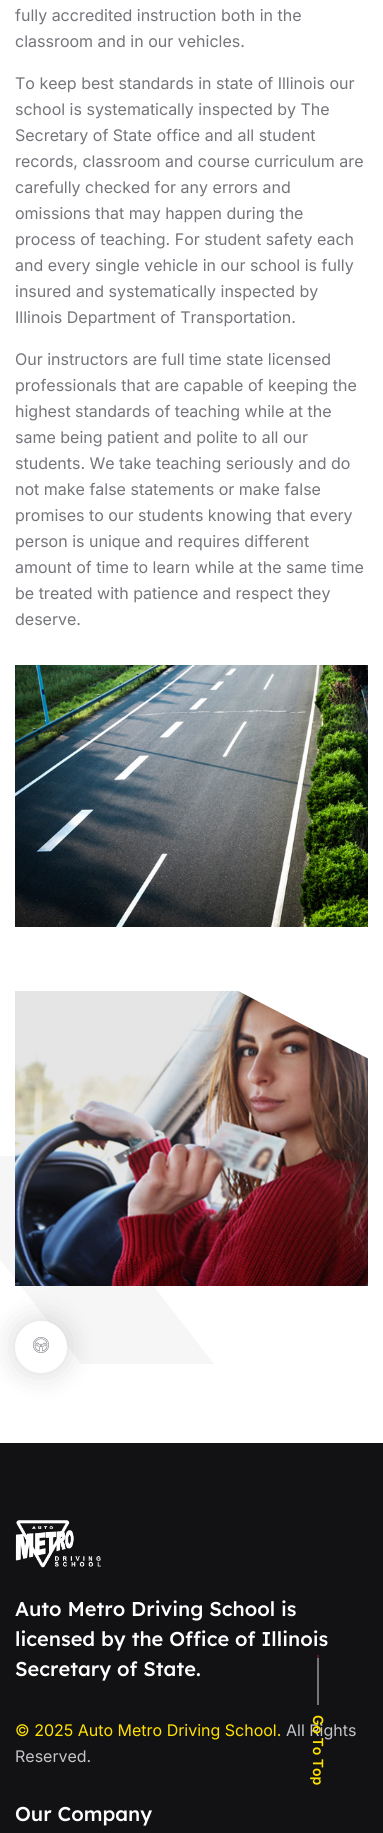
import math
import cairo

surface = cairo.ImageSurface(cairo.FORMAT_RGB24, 383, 1833)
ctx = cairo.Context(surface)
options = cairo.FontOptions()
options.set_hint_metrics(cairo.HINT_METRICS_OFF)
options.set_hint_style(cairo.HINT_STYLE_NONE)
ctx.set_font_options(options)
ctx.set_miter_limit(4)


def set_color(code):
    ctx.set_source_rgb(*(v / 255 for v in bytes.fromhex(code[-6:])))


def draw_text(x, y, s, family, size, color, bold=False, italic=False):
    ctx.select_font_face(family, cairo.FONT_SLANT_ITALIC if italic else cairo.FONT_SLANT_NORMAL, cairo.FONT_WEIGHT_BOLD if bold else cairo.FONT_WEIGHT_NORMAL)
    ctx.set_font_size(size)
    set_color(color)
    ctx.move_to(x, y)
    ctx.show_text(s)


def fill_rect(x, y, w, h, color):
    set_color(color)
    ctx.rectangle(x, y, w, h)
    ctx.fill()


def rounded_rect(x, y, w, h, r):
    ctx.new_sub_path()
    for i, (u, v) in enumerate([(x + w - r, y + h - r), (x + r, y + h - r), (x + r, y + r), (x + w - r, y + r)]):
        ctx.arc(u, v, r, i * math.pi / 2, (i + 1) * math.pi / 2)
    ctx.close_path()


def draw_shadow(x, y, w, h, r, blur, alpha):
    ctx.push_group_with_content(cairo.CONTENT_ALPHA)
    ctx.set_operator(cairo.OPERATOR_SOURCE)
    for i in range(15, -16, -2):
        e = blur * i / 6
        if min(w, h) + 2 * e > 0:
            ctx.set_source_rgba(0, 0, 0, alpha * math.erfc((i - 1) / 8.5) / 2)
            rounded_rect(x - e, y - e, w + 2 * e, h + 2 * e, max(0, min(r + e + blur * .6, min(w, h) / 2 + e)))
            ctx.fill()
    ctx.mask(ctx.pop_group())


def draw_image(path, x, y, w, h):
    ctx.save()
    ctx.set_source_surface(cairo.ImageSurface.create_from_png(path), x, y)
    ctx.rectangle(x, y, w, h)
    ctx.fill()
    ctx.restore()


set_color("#ffffff")
ctx.paint()
draw_text(15, 21, "fully accredited instruction both in the", "Inter", 16, "#74757b")
draw_text(15, 47, "classroom and in our vehicles.", "Inter", 16, "#74757b")
draw_text(15, 89, "To keep best standards in state of Illinois our", "Inter", 16, "#74757b")
draw_text(15, 115, "school is systematically inspected by The", "Inter", 16, "#74757b")
draw_text(15, 141, "Secretary of State office and all student", "Inter", 16, "#74757b")
draw_text(15, 167, "records, classroom and course curriculum are", "Inter", 16, "#74757b")
draw_text(15, 193, "carefully checked for any errors and", "Inter", 16, "#74757b")
draw_text(15, 219, "omissions that may happen during the", "Inter", 16, "#74757b")
draw_text(15, 245, "process of teaching. For student safety each", "Inter", 16, "#74757b")
draw_text(15, 271, "and every single vehicle in our school is fully", "Inter", 16, "#74757b")
draw_text(15, 297, "insured and systematically inspected by", "Inter", 16, "#74757b")
draw_text(15, 323, "Illinois Department of Transportation.", "Inter", 16, "#74757b")
draw_text(15, 365, "Our instructors are full time state licensed", "Inter", 16, "#74757b")
draw_text(15, 391, "professionals that are capable of keeping the", "Inter", 16, "#74757b")
draw_text(15, 417, "highest standards of teaching while at the", "Inter", 16, "#74757b")
draw_text(15, 443, "same being patient and polite to all our", "Inter", 16, "#74757b")
draw_text(15, 469, "students. We take teaching seriously and do", "Inter", 16, "#74757b")
draw_text(15, 495, "not make false statements or make false", "Inter", 16, "#74757b")
draw_text(15, 521, "promises to our students knowing that every", "Inter", 16, "#74757b")
draw_text(15, 547, "person is unique and requires different", "Inter", 16, "#74757b")
draw_text(15, 573, "amount of time to learn while at the same time", "Inter", 16, "#74757b")
draw_text(15, 599, "be treated with patience and respect they", "Inter", 16, "#74757b")
draw_text(15, 625, "deserve.", "Inter", 16, "#74757b")
draw_image("assets/img1.png", 15, 665, 353, 262)
draw_image("assets/img3.png", 0, 1156, 214, 208)
draw_image("assets/img2.png", 15, 991, 353, 295)
set_color("#000000")
draw_shadow(15, 1321, 52, 52, 26, 15, 0.15)
set_color("#ffffff")
ctx.arc(41, 1347, 26, 0, 2 * math.pi)
ctx.fill()
draw_image("assets/img4.png", 33, 1337, 16, 16)
fill_rect(0, 1443, 383, 390, "#121113")
draw_image("assets/img5.png", 15, 1520, 86, 48)
draw_text(15, 1616, "Auto Metro Driving School is", "Lexend Medium", 20, "#ffffff")
draw_text(15, 1646, "licensed by the Office of Illinois", "Lexend Medium", 20, "#ffffff")
draw_text(15, 1676, "Secretary of State.", "Lexend Medium", 20, "#ffffff")
draw_text(15, 1736, "© 2025 Auto Metro Driving School.", "Inter", 16, "#fee100")
draw_text(286, 1736, "All Rights", "Inter", 16, "#c3c4c8")
draw_text(15, 1762, "Reserved.", "Inter", 16, "#c3c4c8")
draw_text(15, 1821, "Our Company", "Lexend Medium", 20, "#ffffff")
fill_rect(317, 1655, 2, 3, "#561725")
fill_rect(317, 1658, 2, 47, "#74757b")
ctx.save()
ctx.translate(313, 1715)
ctx.rotate(90 * math.pi / 180)
draw_text(0, 0, "Go To Top", "Inter SemiBold", 14, "#fee100")
ctx.restore()
surface.write_to_png("output.png")
